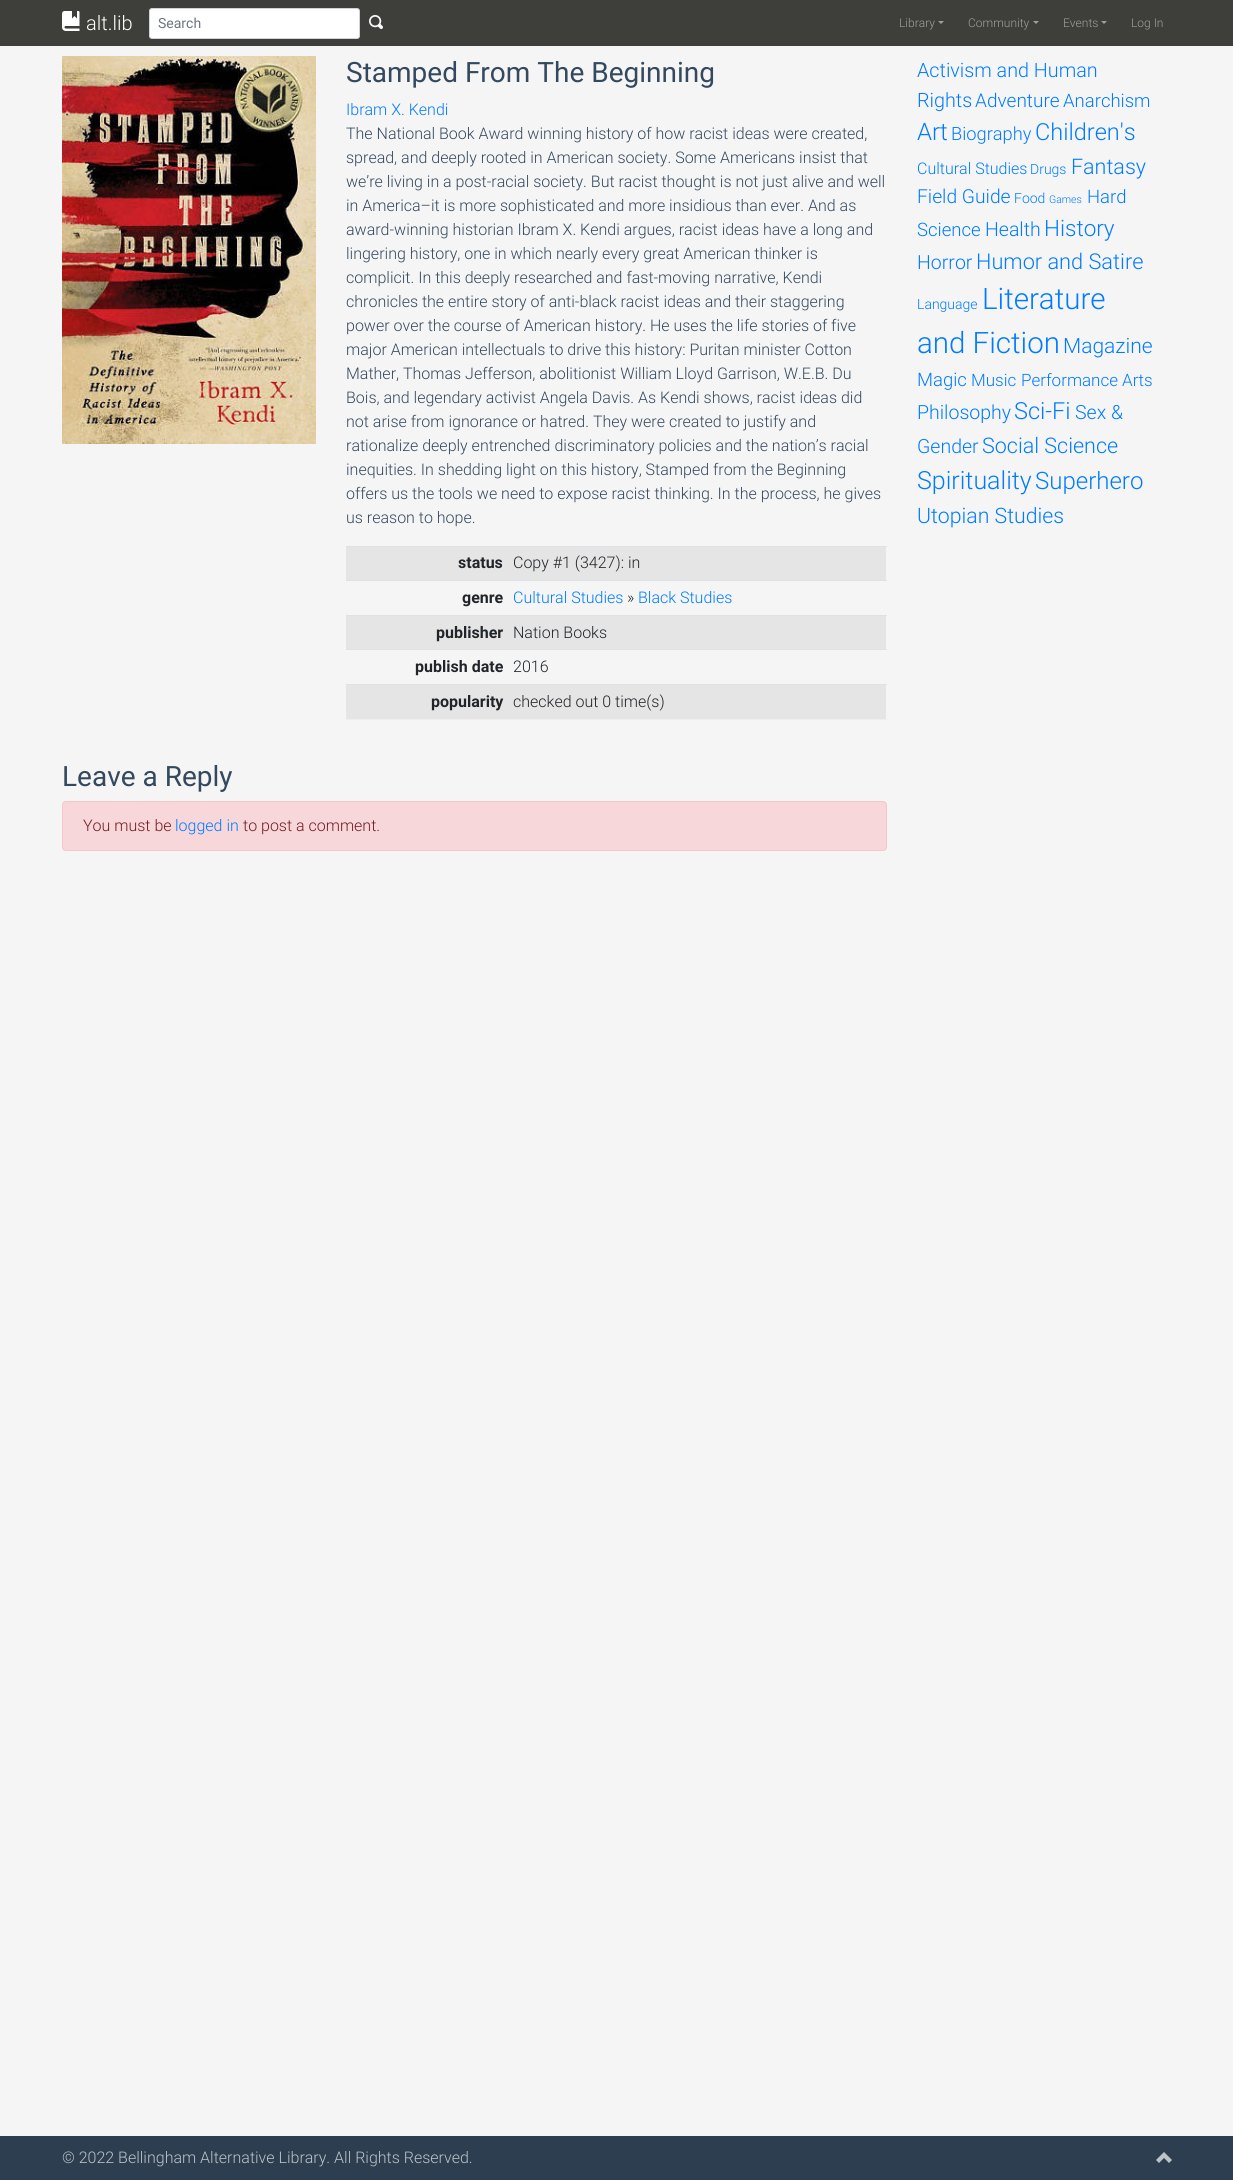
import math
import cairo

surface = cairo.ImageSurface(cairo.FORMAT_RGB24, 1233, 2180)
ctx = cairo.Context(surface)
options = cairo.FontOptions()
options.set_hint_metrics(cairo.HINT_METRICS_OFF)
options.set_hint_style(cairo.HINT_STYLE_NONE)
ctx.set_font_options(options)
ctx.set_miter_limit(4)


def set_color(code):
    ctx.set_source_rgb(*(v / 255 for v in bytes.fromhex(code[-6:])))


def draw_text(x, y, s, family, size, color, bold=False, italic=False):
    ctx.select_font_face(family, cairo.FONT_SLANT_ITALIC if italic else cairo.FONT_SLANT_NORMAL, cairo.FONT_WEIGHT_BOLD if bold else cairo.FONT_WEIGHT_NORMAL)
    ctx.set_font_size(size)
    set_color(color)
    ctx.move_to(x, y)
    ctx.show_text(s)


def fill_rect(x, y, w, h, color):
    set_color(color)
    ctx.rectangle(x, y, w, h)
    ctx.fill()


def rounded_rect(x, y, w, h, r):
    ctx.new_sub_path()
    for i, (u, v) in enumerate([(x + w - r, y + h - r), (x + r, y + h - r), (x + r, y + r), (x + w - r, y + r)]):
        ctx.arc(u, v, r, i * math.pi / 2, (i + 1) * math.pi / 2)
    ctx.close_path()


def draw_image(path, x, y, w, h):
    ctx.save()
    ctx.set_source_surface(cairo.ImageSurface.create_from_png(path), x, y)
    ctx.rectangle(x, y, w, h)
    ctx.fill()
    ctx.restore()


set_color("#f5f5f5")
ctx.paint()
fill_rect(0, 0, 1233, 46, "#3e3f3a")
draw_image("assets/img1.png", 62, 11, 18, 20)
draw_text(86, 30, "alt.lib", "Roboto Light", 20, "#ffffff")
rounded_rect(149.5, 8.5, 210, 30, 2.5)
ctx.fill_preserve()
set_color("#ced4da")
ctx.set_line_width(1)
ctx.stroke()
draw_text(158, 28, "Search", "Roboto", 14, "#6c757d")
draw_image("assets/img2.png", 369, 15, 14, 14)
draw_text(899, 27, "Library", "Roboto Light", 12, "#9f9f9d")
ctx.new_path()
ctx.move_to(938, 21)
ctx.line_to(944, 21)
ctx.line_to(941, 24)
ctx.close_path()
ctx.fill()
draw_text(968, 27, "Community", "Roboto Light", 12, "#9f9f9d")
ctx.new_path()
ctx.move_to(1033, 21)
ctx.line_to(1039, 21)
ctx.line_to(1036, 24)
ctx.close_path()
ctx.fill()
draw_text(1063, 27, "Events", "Roboto Light", 12, "#9f9f9d")
ctx.new_path()
ctx.move_to(1101, 21)
ctx.line_to(1107, 21)
ctx.line_to(1104, 24)
ctx.close_path()
ctx.fill()
draw_text(1131, 27, "Log In", "Roboto Light", 12, "#9f9f9d")
draw_image("assets/img3.png", 62, 56, 254, 388)
draw_text(346, 82, "Stamped From The Beginning", "Roboto", 28, "#34495e")
draw_text(346, 115, "Ibram X. Kendi", "Roboto Light", 16, "#007bff")
draw_text(346, 139, "The National Book Award winning history of how racist ideas were created,", "Roboto Light", 16, "#34495e")
draw_text(346, 163, "spread, and deeply rooted in American society. Some Americans insist that", "Roboto Light", 16, "#34495e")
draw_text(346, 187, "we’re living in a post-racial society. But racist thought is not just alive and well", "Roboto Light", 16, "#34495e")
draw_text(346, 211, "in America–it is more sophisticated and more insidious than ever. And as", "Roboto Light", 16, "#34495e")
draw_text(346, 235, "award-winning historian Ibram X. Kendi argues, racist ideas have a long and", "Roboto Light", 16, "#34495e")
draw_text(346, 259, "lingering history, one in which nearly every great American thinker is", "Roboto Light", 16, "#34495e")
draw_text(346, 283, "complicit. In this deeply researched and fast-moving narrative, Kendi", "Roboto Light", 16, "#34495e")
draw_text(346, 307, "chronicles the entire story of anti-black racist ideas and their staggering", "Roboto Light", 16, "#34495e")
draw_text(346, 331, "power over the course of American history. He uses the life stories of five", "Roboto Light", 16, "#34495e")
draw_text(346, 355, "major American intellectuals to drive this history: Puritan minister Cotton", "Roboto Light", 16, "#34495e")
draw_text(346, 379, "Mather, Thomas Jefferson, abolitionist William Lloyd Garrison, W.E.B. Du", "Roboto Light", 16, "#34495e")
draw_text(346, 403, "Bois, and legendary activist Angela Davis. As Kendi shows, racist ideas did", "Roboto Light", 16, "#34495e")
draw_text(346, 427, "not arise from ignorance or hatred. They were created to justify and", "Roboto Light", 16, "#34495e")
draw_text(346, 451, "rationalize deeply entrenched discriminatory policies and the nation’s racial", "Roboto Light", 16, "#34495e")
draw_text(346, 475, "inequities. In shedding light on this history, Stamped from the Beginning", "Roboto Light", 16, "#34495e")
draw_text(346, 499, "offers us the tools we need to expose racist thinking. In the process, he gives", "Roboto Light", 16, "#34495e")
draw_text(346, 523, "us reason to hope.", "Roboto Light", 16, "#34495e")
fill_rect(346, 547, 540, 33, "#e5e5e5")
draw_text(458, 568, "status", "Roboto", 16, "#212529", bold=True)
fill_rect(346, 546, 541, 1, "#dee2e6")
draw_text(513, 568, "Copy #1 (3427): in", "Roboto Light", 16, "#212529")
draw_text(462, 603, "genre", "Roboto", 16, "#212529", bold=True)
fill_rect(346, 580, 541, 1, "#dee2e6")
draw_text(513, 603, "Cultural Studies", "Roboto Light", 16, "#007bff")
draw_text(627, 603, "»", "Roboto Light", 16, "#212529")
draw_text(638, 603, "Black Studies", "Roboto Light", 16, "#007bff")
fill_rect(346, 616, 540, 33, "#e5e5e5")
draw_text(436, 638, "publisher", "Roboto", 16, "#212529", bold=True)
fill_rect(346, 615, 541, 1, "#dee2e6")
draw_text(513, 638, "Nation Books", "Roboto Light", 16, "#212529")
draw_text(415, 672, "publish date", "Roboto", 16, "#212529", bold=True)
fill_rect(346, 649, 541, 1, "#dee2e6")
draw_text(513, 672, "2016", "Roboto Light", 16, "#212529")
fill_rect(346, 685, 540, 34, "#e5e5e5")
fill_rect(346, 719, 541, 1, "#eeeeee")
draw_text(431, 707, "popularity", "Roboto", 16, "#212529", bold=True)
fill_rect(346, 684, 541, 1, "#dee2e6")
draw_text(513, 707, "checked out 0 time(s)", "Roboto Light", 16, "#212529")
draw_text(62, 786, "Leave a Reply", "Roboto", 28, "#34495e")
set_color("#f8d7da")
rounded_rect(62.5, 801.5, 824, 49, 3.5)
ctx.fill_preserve()
set_color("#f5c6cb")
ctx.stroke()
draw_text(83, 831, "You must be", "Roboto Light", 16, "#721c24")
draw_text(175, 831, "logged in", "Roboto Light", 16, "#007bff")
draw_text(243, 831, "to post a comment.", "Roboto Light", 16, "#721c24")
draw_text(917, 77, "Activism and Human", "Roboto Light", 19.75, "#007bff")
draw_text(917, 107, "Rights", "Roboto Light", 19.75, "#007bff")
draw_text(975, 107, "Adventure", "Roboto Light", 19, "#007bff")
draw_text(1063, 107, "Anarchism", "Roboto Light", 18.5, "#007bff")
draw_text(917, 140, "Art", "Roboto Light", 24, "#007bff")
draw_text(951, 140, "Biography", "Roboto Light", 18.25, "#007bff")
draw_text(1035, 140, "Children's", "Roboto Light", 23.5, "#007bff")
draw_text(917, 174, "Cultural Studies", "Roboto Light", 16, "#007bff")
draw_text(1030, 174, "Drugs", "Roboto Light", 14, "#007bff")
draw_text(1071, 174, "Fantasy", "Roboto Light", 21.5, "#007bff")
draw_text(917, 203, "Field Guide", "Roboto Light", 19.25, "#007bff")
draw_text(1014, 203, "Food", "Roboto Light", 14, "#007bff")
draw_text(1049, 203, "Games", "Roboto Light", 10.5, "#007bff")
draw_text(1087, 203, "Hard", "Roboto Light", 18.5, "#007bff")
draw_text(917, 236, "Science", "Roboto Light", 18.5, "#007bff")
draw_text(985, 236, "Health", "Roboto Light", 19.5, "#007bff")
draw_text(1044, 236, "History", "Roboto Light", 22.5, "#007bff")
draw_text(917, 269, "Horror", "Roboto Light", 19.5, "#007bff")
draw_text(976, 269, "Humor and Satire", "Roboto Light", 21.75, "#007bff")
draw_text(917, 309, "Language", "Roboto Light", 14, "#007bff")
draw_text(982, 309, "Literature", "Roboto Light", 29.5, "#007bff")
draw_text(917, 353, "and Fiction", "Roboto Light", 29.5, "#007bff")
draw_text(1063, 353, "Magazine", "Roboto Light", 21, "#007bff")
draw_text(917, 386, "Magic", "Roboto Light", 18.5, "#007bff")
draw_text(971, 386, "Music", "Roboto Light", 17, "#007bff")
draw_text(1021, 386, "Performance Arts", "Roboto Light", 17, "#007bff")
draw_text(917, 419, "Philosophy", "Roboto Light", 19.5, "#007bff")
draw_text(1014, 419, "Sci-Fi", "Roboto Light", 23.5, "#007bff")
draw_text(1075, 419, "Sex &", "Roboto Light", 19.5, "#007bff")
draw_text(917, 453, "Gender", "Roboto Light", 19.5, "#007bff")
draw_text(982, 453, "Social Science", "Roboto Light", 21.5, "#007bff")
draw_text(917, 489, "Spirituality", "Roboto Light", 25, "#007bff")
draw_text(1035, 489, "Superhero", "Roboto Light", 24, "#007bff")
draw_text(917, 523, "Utopian Studies", "Roboto Light", 21.25, "#007bff")
fill_rect(0, 2136, 1233, 44, "#2c3e50")
draw_text(62, 2163, "© 2022 Bellingham Alternative Library. All Rights Reserved.", "Roboto Light", 16, "#bdc3c7")
draw_image("assets/img4.png", 1156, 2152, 16, 11)
surface.write_to_png("output.png")
